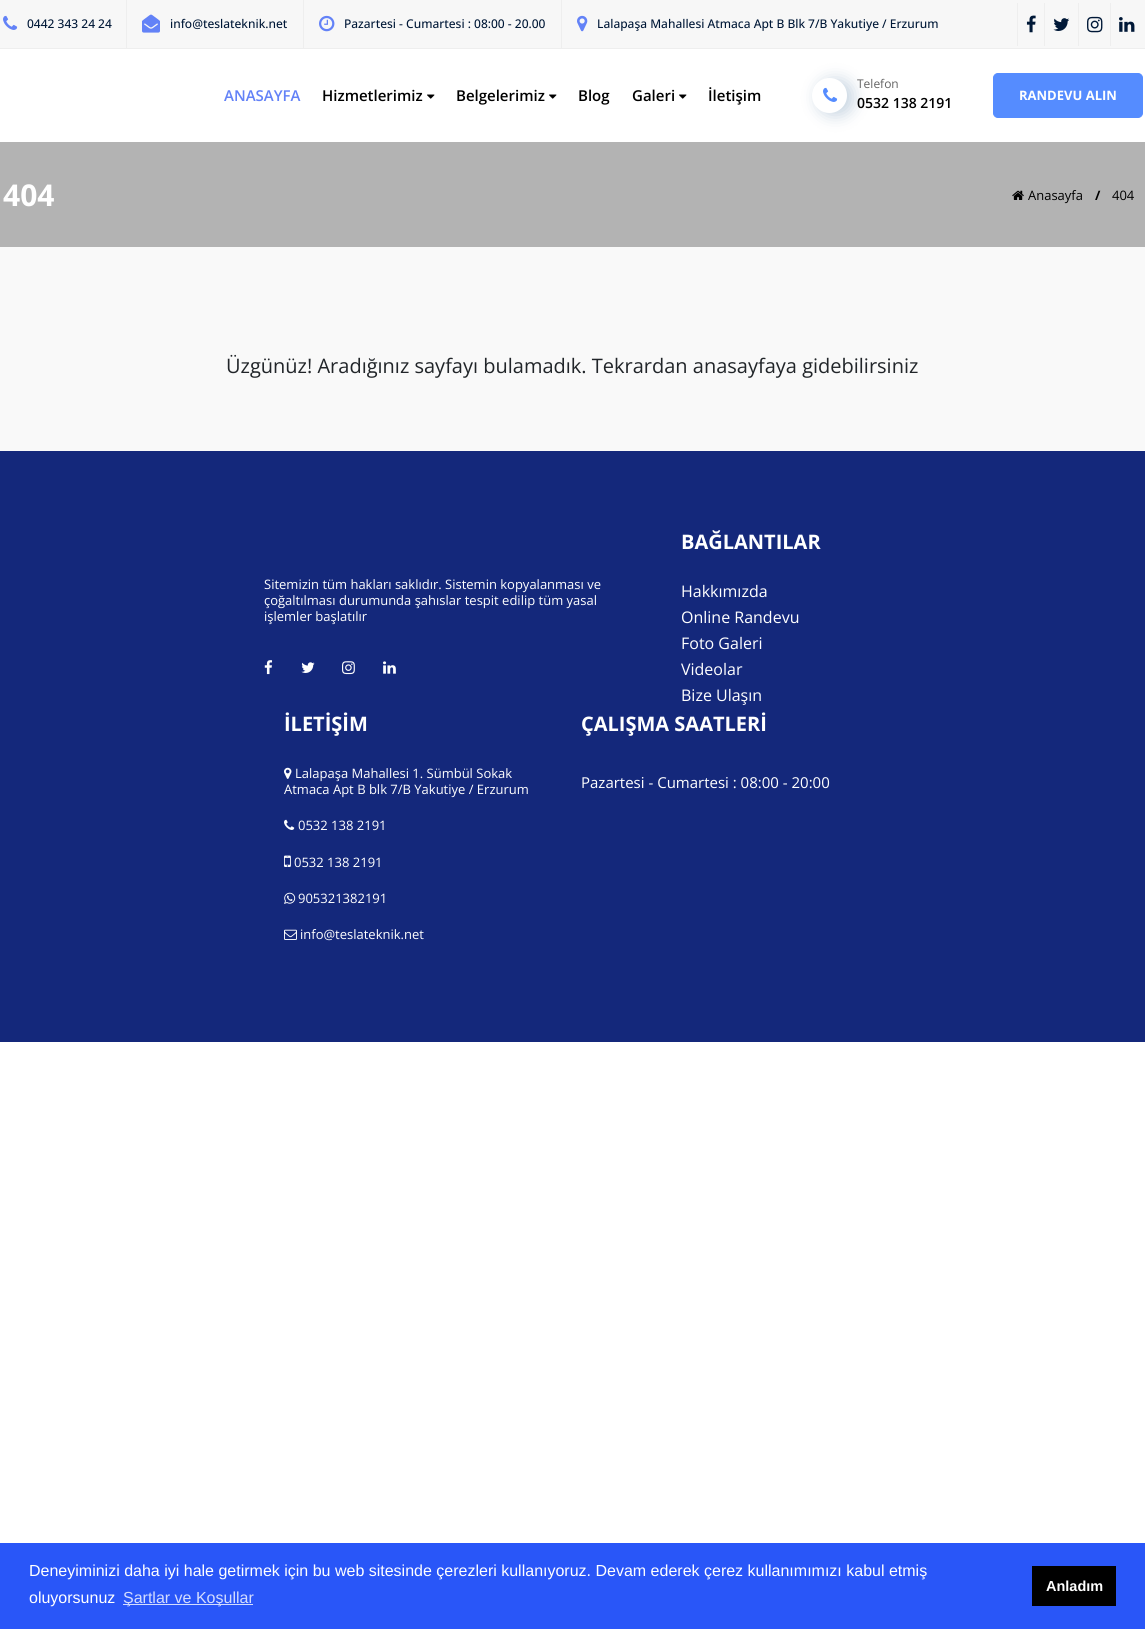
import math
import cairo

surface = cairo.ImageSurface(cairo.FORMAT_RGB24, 1145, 1629)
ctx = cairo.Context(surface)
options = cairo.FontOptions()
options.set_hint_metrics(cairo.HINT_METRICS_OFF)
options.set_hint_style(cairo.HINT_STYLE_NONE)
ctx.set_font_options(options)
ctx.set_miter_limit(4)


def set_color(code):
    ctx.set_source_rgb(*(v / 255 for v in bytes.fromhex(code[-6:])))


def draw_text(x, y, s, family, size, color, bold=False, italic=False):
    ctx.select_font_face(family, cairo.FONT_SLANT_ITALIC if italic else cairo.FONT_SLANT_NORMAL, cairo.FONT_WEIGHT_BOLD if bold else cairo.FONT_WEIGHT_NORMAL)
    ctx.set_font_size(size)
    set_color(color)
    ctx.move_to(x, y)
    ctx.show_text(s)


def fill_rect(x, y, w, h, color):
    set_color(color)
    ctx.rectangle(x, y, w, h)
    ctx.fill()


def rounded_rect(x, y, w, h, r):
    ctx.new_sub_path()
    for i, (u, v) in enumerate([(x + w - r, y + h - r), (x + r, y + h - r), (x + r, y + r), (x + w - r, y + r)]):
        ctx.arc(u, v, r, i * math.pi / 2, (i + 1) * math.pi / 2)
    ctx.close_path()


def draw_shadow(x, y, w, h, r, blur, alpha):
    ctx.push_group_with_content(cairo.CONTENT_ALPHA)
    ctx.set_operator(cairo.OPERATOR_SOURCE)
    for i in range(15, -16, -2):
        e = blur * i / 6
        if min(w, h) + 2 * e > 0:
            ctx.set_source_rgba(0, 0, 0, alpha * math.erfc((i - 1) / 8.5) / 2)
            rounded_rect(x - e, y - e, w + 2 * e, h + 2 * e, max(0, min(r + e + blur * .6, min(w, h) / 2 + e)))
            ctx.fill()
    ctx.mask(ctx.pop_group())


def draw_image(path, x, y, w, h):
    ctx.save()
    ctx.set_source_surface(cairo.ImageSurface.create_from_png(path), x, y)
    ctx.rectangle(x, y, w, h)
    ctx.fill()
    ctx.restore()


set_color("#ffffff")
ctx.paint()
fill_rect(0, 0, 1145, 48, "#f7f7f7")
fill_rect(0, 48, 1145, 1, "#eeeeee")
fill_rect(126, 0, 1, 48, "#eeeeee")
draw_image("assets/img1.png", 3, 15, 15, 15)
draw_text(27, 28, "0442 343 24 24", "Open Sans Medium", 12, "#001837")
fill_rect(303, 0, 1, 48, "#eeeeee")
draw_image("assets/img2.png", 142, 14, 18, 19)
draw_text(170, 28, "info@teslateknik.net", "Open Sans Medium", 12, "#001837")
fill_rect(561, 0, 1, 48, "#eeeeee")
draw_image("assets/img3.png", 319, 15, 16, 17)
draw_text(344, 28, "Pazartesi - Cumartesi : 08:00 - 20.00", "Open Sans Medium", 12, "#001837")
draw_image("assets/img4.png", 577, 15, 11, 17)
draw_text(597, 28, "Lalapaşa Mahallesi Atmaca Apt B Blk 7/B Yakutiye / Erzurum", "Open Sans Medium", 12, "#001837")
fill_rect(1017, 3, 1, 43, "#eeeeee")
draw_image("assets/img5.png", 1026, 15, 10, 18)
fill_rect(1044, 3, 1, 43, "#eeeeee")
draw_image("assets/img6.png", 1053, 18, 17, 13)
fill_rect(1078, 3, 1, 43, "#eeeeee")
draw_image("assets/img7.png", 1087, 16, 16, 17)
fill_rect(1110, 3, 1, 43, "#eeeeee")
draw_image("assets/img8.png", 1119, 17, 16, 15)
draw_text(224, 101, "ANASAYFA", "Open Sans SemiBold", 15, "#6382f7")
draw_text(322, 101, "Hizmetlerimiz", "Open Sans SemiBold", 15, "#000000")
draw_image("assets/img9.png", 427, 94, 8, 5)
draw_text(456, 101, "Belgelerimiz", "Open Sans SemiBold", 15, "#000000")
draw_image("assets/img9.png", 549, 94, 8, 5)
draw_text(578, 101, "Blog", "Open Sans SemiBold", 15, "#000000")
draw_text(632, 101, "Galeri", "Open Sans SemiBold", 15, "#000000")
draw_image("assets/img9.png", 679, 94, 8, 5)
draw_text(708, 101, "İletişim", "Open Sans SemiBold", 15, "#000000")
set_color("#88a5bf")
draw_shadow(818, 80, 35, 35, 17.5, 8, 0.48)
set_color("#ffffff")
ctx.arc(829.5, 95.5, 17.5, 0, 2 * math.pi)
ctx.fill()
draw_image("assets/img10.png", 823, 87, 15, 15)
draw_text(857, 88, "Telefon", "Open Sans", 12, "#626262")
draw_text(857, 108, "0532 138 2191", "Open Sans SemiBold", 14, "#000000")
set_color("#558cff")
rounded_rect(993.5, 73.5, 149, 44, 4.5)
ctx.fill_preserve()
ctx.set_line_width(1)
ctx.stroke()
draw_text(1019, 100, "RANDEVU ALIN", "Open Sans", 13, "#ffffff", bold=True)
fill_rect(0, 142, 1145, 105, "#b3b3b3")
draw_text(3, 206, "404", "Open Sans", 30, "#ffffff", bold=True)
draw_image("assets/img11.png", 1012, 190, 12, 10)
draw_text(1028, 200, "Anasayfa", "Open Sans", 13, "#000000")
draw_text(1095, 200, "/", "Open Sans", 13, "#000000", bold=True)
draw_text(1112, 200, "404", "Open Sans", 13, "#000000")
fill_rect(0, 247, 1145, 204, "#f9f9f9")
draw_text(226, 373, "Üzgünüz! Aradığınız sayfayı bulamadık. Tekrardan anasayfaya gidebilirsiniz", "Open Sans", 20, "#212529")
fill_rect(0, 451, 1145, 591, "#14287b")
draw_text(264, 589, "Sitemizin tüm hakları saklıdır. Sistemin kopyalanması ve", "Open Sans", 13, "#ffffff")
draw_text(264, 605, "çoğaltılması durumunda şahıslar tespit edilip tüm yasal", "Open Sans", 13, "#ffffff")
draw_text(264, 621, "işlemler başlatılır", "Open Sans", 13, "#ffffff")
draw_image("assets/img12.png", 264, 660, 9, 15)
draw_image("assets/img13.png", 301, 662, 14, 11)
draw_image("assets/img14.png", 342, 661, 13, 14)
draw_image("assets/img15.png", 383, 661, 13, 13)
draw_text(681, 549, "BAĞLANTILAR", "Open Sans", 20, "#ffffff", bold=True)
draw_text(681, 597, "Hakkımızda", "Open Sans", 16, "#ffffff")
draw_text(681, 623, "Online Randevu", "Open Sans", 16, "#ffffff")
draw_text(681, 649, "Foto Galeri", "Open Sans", 16, "#ffffff")
draw_text(681, 675, "Videolar", "Open Sans", 16, "#ffffff")
draw_text(681, 701, "Bize Ulaşın", "Open Sans", 16, "#ffffff")
draw_text(284, 731, "İLETİŞİM", "Open Sans", 20, "#ffffff", bold=True)
draw_image("assets/img16.png", 284, 767, 8, 12)
draw_text(295, 778, "Lalapaşa Mahallesi 1. Sümbül Sokak", "Open Sans", 13, "#ffffff")
draw_text(284, 794, "Atmaca Apt B blk 7/B Yakutiye / Erzurum", "Open Sans", 13, "#ffffff")
draw_image("assets/img17.png", 284, 819, 11, 11)
draw_text(298, 830, "0532 138 2191", "Open Sans", 13, "#ffffff")
draw_image("assets/img18.png", 284, 855, 7, 12)
draw_text(294, 867, "0532 138 2191", "Open Sans", 13, "#ffffff")
draw_image("assets/img19.png", 284, 892, 12, 12)
draw_text(298, 903, "905321382191", "Open Sans", 13, "#ffffff")
draw_image("assets/img20.png", 284, 929, 13, 11)
draw_text(300, 939, "info@teslateknik.net", "Open Sans", 13, "#ffffff")
draw_text(581, 731, "ÇALIŞMA SAATLERİ", "Open Sans", 20, "#ffffff", bold=True)
draw_text(581, 788, "Pazartesi - Cumartesi : 08:00 - 20:00", "Open Sans", 15, "#ffffff")
fill_rect(0, 1543, 1145, 86, "#2956f8")
draw_text(29, 1576, "Deneyiminizi daha iyi hale getirmek için bu web sitesinde çerezleri kullanıyoruz. Devam ederek çerez kullanımımızı kabul etmiş", "Liberation Sans", 16, "#ffffff")
draw_text(29, 1603, "oluyorsunuz", "Liberation Sans", 16, "#ffffff")
fill_rect(123, 1604, 130, 1, "#d4ddfe")
draw_text(123, 1603, "Şartlar ve Koşullar", "Liberation Sans", 16, "#d4ddfe")
fill_rect(1032, 1566, 84, 40, "#000000")
draw_text(1046, 1591, "Anladım", "Liberation Sans", 14.5, "#ffffff", bold=True)
surface.write_to_png("output.png")
